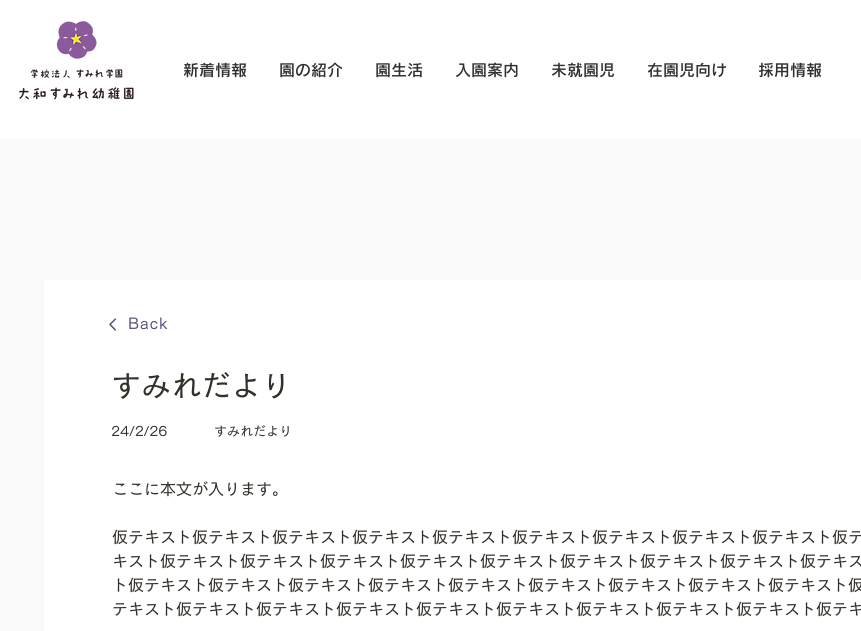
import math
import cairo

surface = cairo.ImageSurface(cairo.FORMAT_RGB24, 861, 631)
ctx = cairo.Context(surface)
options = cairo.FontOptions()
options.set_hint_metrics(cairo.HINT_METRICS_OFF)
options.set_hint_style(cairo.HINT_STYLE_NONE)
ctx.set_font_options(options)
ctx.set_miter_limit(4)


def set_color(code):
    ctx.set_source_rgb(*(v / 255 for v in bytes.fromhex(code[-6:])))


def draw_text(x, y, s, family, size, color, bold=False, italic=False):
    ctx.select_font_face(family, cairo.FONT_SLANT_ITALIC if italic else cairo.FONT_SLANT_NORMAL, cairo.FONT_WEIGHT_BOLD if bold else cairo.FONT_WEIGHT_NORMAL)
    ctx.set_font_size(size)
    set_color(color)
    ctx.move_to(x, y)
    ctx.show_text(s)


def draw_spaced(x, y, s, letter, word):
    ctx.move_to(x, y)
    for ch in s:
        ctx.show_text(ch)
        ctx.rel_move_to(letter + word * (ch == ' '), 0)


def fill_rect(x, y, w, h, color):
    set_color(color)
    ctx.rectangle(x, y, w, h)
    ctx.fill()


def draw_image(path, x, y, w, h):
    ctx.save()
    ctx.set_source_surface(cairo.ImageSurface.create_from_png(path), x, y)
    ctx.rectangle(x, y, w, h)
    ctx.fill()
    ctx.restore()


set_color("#ffffff")
ctx.paint()
draw_image("assets/img1.png", 19, 21, 115, 79)
draw_text(183, 76, "新着情報", "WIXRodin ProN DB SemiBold", 16, "#313131")
draw_text(279, 76, "園の紹介", "WIXRodin ProN DB SemiBold", 16, "#313131")
draw_text(375, 76, "園生活", "WIXRodin ProN DB SemiBold", 16, "#313131")
draw_text(455, 76, "入園案内", "WIXRodin ProN DB SemiBold", 16, "#313131")
draw_text(551, 76, "未就園児", "WIXRodin ProN DB SemiBold", 16, "#313131")
draw_text(647, 76, "在園児向け", "WIXRodin ProN DB SemiBold", 16, "#313131")
draw_text(758, 76, "採用情報", "WIXRodin ProN DB SemiBold", 16, "#313131")
fill_rect(0, 139, 861, 492, "#fafafa")
fill_rect(44, 280, 817, 351, "#ffffff")
draw_image("assets/img2.png", 109, 318, 7, 13)
ctx.select_font_face("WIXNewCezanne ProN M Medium")
ctx.set_font_size(15)
set_color("#5b4a80")
draw_spaced(128, 329, "Back", 1, 0)
draw_text(111, 397, "すみれだより", "WIXNewCezanne ProN M Medium", 30, "#333029")
draw_text(111, 436, "24/2/26", "WIXNewCezanne ProN M Medium", 13, "#333029")
draw_text(214, 436, "すみれだより", "WIXNewCezanne ProN M Medium", 13, "#333029")
draw_text(112, 495, "ここに本文が入ります。", "WIXNewCezanne ProN M Medium", 16, "#333029")
draw_text(112, 543, "仮テキスト仮テキスト仮テキスト仮テキスト仮テキスト仮テキスト仮テキスト仮テキスト仮テキスト仮テ", "WIXNewCezanne ProN M Medium", 16, "#333029")
draw_text(112, 567, "キスト仮テキスト仮テキスト仮テキスト仮テキスト仮テキスト仮テキスト仮テキスト仮テキスト仮テキス", "WIXNewCezanne ProN M Medium", 16, "#333029")
draw_text(112, 591, "ト仮テキスト仮テキスト仮テキスト仮テキスト仮テキスト仮テキスト仮テキスト仮テキスト仮テキスト仮", "WIXNewCezanne ProN M Medium", 16, "#333029")
draw_text(112, 615, "テキスト仮テキスト仮テキスト仮テキスト仮テキスト仮テキスト仮テキスト仮テキスト仮テキスト仮テキ", "WIXNewCezanne ProN M Medium", 16, "#333029")
surface.write_to_png("output.png")
